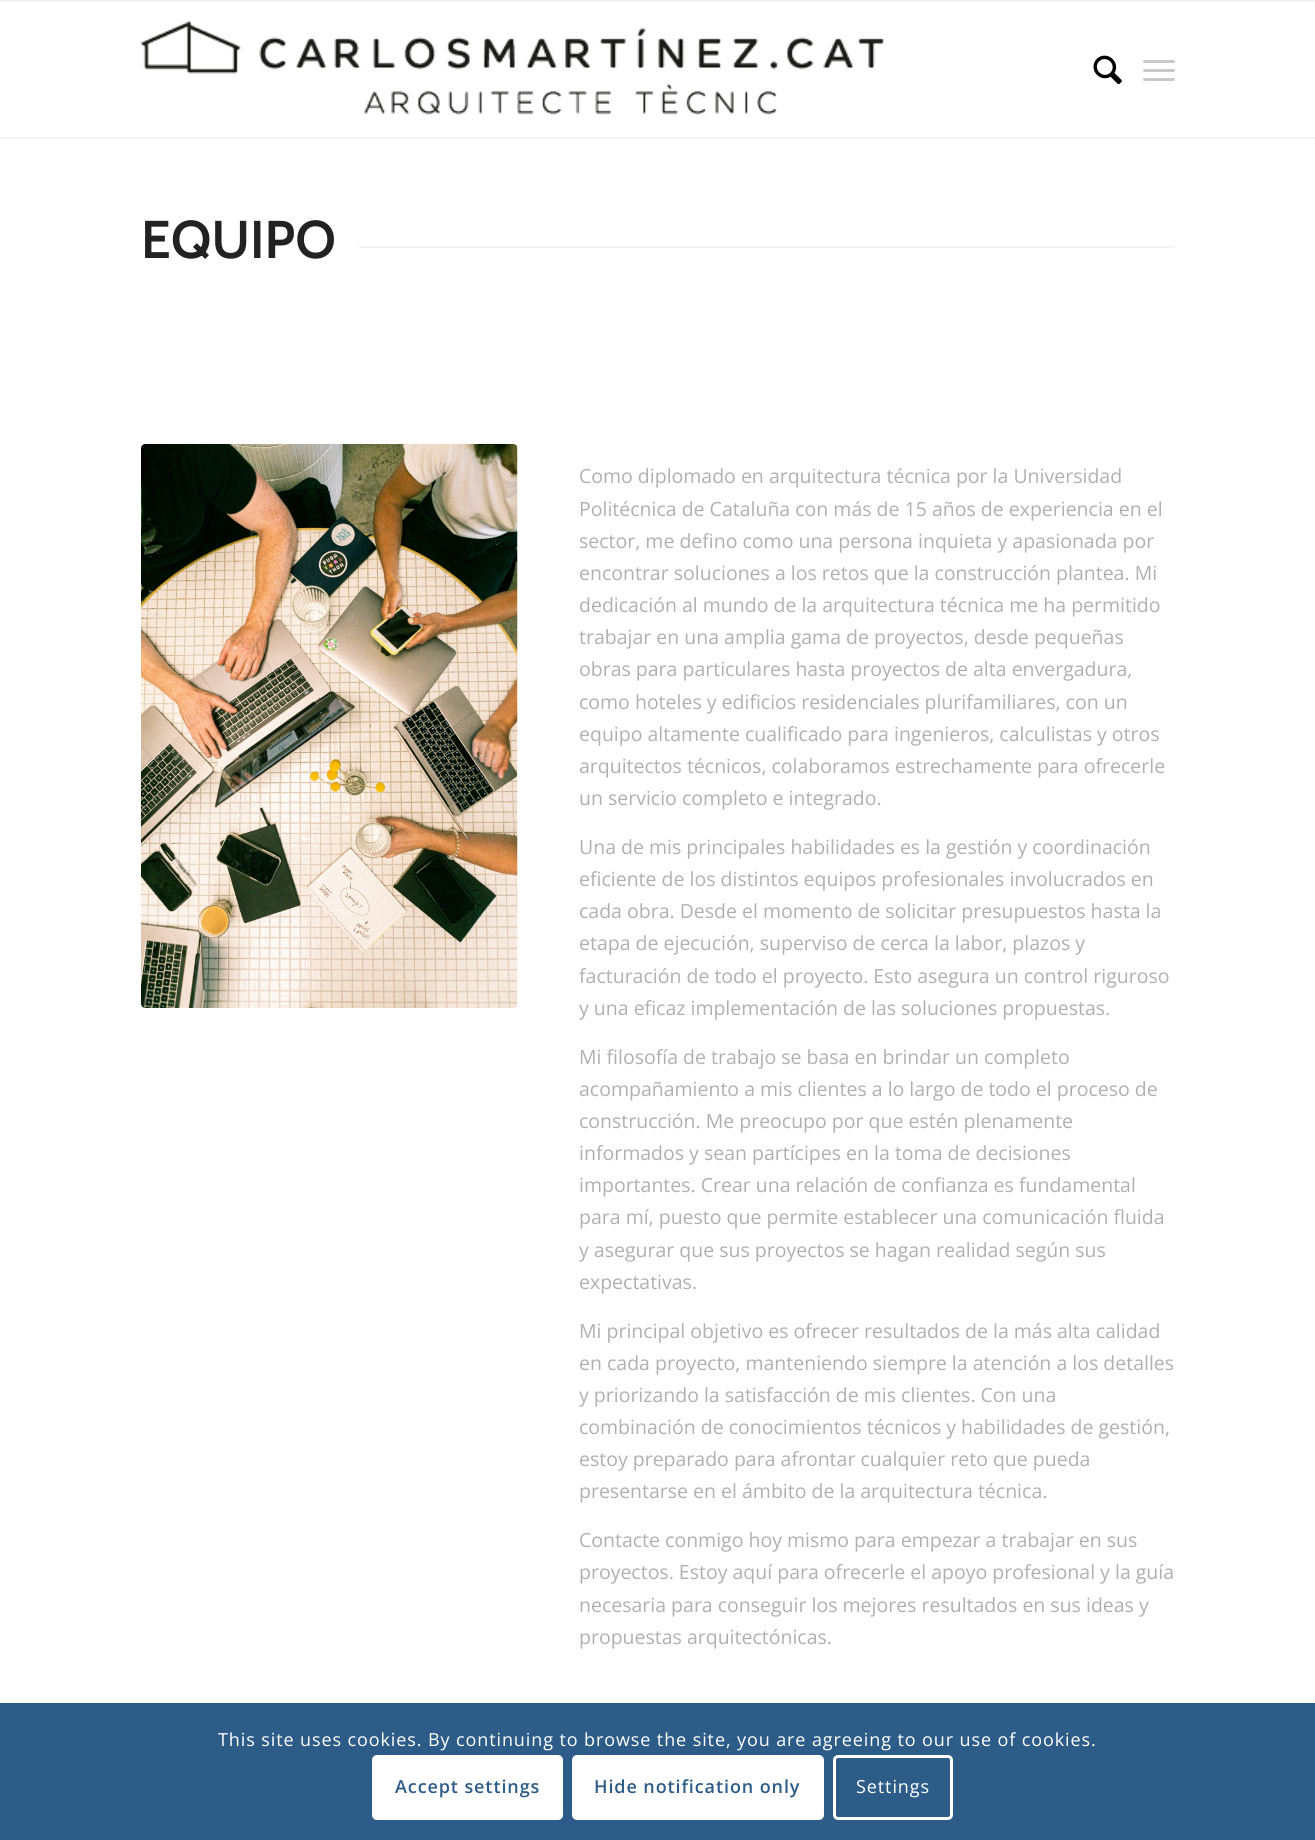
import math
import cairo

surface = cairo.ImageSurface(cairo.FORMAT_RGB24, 1315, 1840)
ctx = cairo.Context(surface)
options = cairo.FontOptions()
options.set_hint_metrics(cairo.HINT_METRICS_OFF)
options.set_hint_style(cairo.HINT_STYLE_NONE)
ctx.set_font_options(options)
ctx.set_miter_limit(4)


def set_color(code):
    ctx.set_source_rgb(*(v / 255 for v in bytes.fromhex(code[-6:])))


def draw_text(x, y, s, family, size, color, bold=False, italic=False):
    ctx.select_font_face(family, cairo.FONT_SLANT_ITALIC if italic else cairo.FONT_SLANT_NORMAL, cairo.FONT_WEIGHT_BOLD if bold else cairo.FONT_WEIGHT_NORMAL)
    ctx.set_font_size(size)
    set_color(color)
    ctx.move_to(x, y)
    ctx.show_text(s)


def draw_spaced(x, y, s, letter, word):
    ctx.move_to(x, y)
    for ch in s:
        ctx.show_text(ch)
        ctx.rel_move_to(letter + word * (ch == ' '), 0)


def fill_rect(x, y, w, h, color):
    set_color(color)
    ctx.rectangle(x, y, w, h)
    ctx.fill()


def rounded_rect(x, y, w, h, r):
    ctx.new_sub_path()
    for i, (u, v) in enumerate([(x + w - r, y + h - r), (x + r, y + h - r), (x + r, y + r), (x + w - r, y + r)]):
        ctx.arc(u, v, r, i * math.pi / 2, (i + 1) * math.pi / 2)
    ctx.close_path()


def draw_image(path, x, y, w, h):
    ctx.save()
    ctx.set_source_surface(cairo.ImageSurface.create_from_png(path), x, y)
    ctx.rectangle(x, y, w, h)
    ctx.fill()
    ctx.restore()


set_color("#ffffff")
ctx.paint()
fill_rect(0, 0, 1315, 2, "#f2f2f2")
fill_rect(0, 137, 1315, 2, "#f2f2f2")
draw_image("assets/img1.png", 141, 21, 743, 94)
draw_image("assets/img2.png", 1093, 55, 29, 30)
set_color("#c9c9c9")
rounded_rect(1143, 69, 32, 3, 1.5)
ctx.fill()
rounded_rect(1143, 60, 32, 3, 1.5)
ctx.fill()
rounded_rect(1143, 78, 32, 3, 1.5)
ctx.fill()
ctx.select_font_face("Cabin", cairo.FONT_SLANT_NORMAL, cairo.FONT_WEIGHT_BOLD)
ctx.set_font_size(51)
set_color("#222222")
draw_spaced(141, 258, "EQUIPO", 1.5, 0)
fill_rect(359, 246, 816, 2, "#f3f3f3")
draw_image("assets/img3.png", 141, 444, 377, 564)
draw_text(579, 483, "Como diplomado en arquitectura técnica por la Universidad", "Open Sans", 19.5, "#b0b0b0")
draw_text(579, 516, "Politécnica de Cataluña con más de 15 años de experiencia en el", "Open Sans", 19.5, "#b0b0b0")
draw_text(579, 548, "sector, me defino como una persona inquieta y apasionada por", "Open Sans", 19.5, "#b0b0b0")
draw_text(579, 580, "encontrar soluciones a los retos que la construcción plantea. Mi", "Open Sans", 19.5, "#b0b0b0")
draw_text(579, 612, "dedicación al mundo de la arquitectura técnica me ha permitido", "Open Sans", 19.5, "#b0b0b0")
draw_text(579, 644, "trabajar en una amplia gama de proyectos, desde pequeñas", "Open Sans", 19.5, "#b0b0b0")
draw_text(579, 676, "obras para particulares hasta proyectos de alta envergadura,", "Open Sans", 19.5, "#b0b0b0")
draw_text(579, 709, "como hoteles y edificios residenciales plurifamiliares, con un", "Open Sans", 19.5, "#b0b0b0")
draw_text(579, 741, "equipo altamente cualificado para ingenieros, calculistas y otros", "Open Sans", 19.5, "#b0b0b0")
draw_text(579, 773, "arquitectos técnicos, colaboramos estrechamente para ofrecerle", "Open Sans", 19.5, "#b0b0b0")
draw_text(579, 805, "un servicio completo e integrado.", "Open Sans", 19.5, "#b0b0b0")
draw_text(579, 854, "Una de mis principales habilidades es la gestión y coordinación", "Open Sans", 19.5, "#b0b0b0")
draw_text(579, 886, "eficiente de los distintos equipos profesionales involucrados en", "Open Sans", 19.5, "#b0b0b0")
draw_text(579, 918, "cada obra. Desde el momento de solicitar presupuestos hasta la", "Open Sans", 19.5, "#b0b0b0")
draw_text(579, 950, "etapa de ejecución, superviso de cerca la labor, plazos y", "Open Sans", 19.5, "#b0b0b0")
draw_text(579, 983, "facturación de todo el proyecto. Esto asegura un control riguroso", "Open Sans", 19.5, "#b0b0b0")
draw_text(579, 1015, "y una eficaz implementación de las soluciones propuestas.", "Open Sans", 19.5, "#b0b0b0")
draw_text(579, 1064, "Mi filosofía de trabajo se basa en brindar un completo", "Open Sans", 19.5, "#b0b0b0")
draw_text(579, 1096, "acompañamiento a mis clientes a lo largo de todo el proceso de", "Open Sans", 19.5, "#b0b0b0")
draw_text(579, 1128, "construcción. Me preocupo por que estén plenamente", "Open Sans", 19.5, "#b0b0b0")
draw_text(579, 1160, "informados y sean partícipes en la toma de decisiones", "Open Sans", 19.5, "#b0b0b0")
draw_text(579, 1192, "importantes. Crear una relación de confianza es fundamental", "Open Sans", 19.5, "#b0b0b0")
draw_text(579, 1224, "para mí, puesto que permite establecer una comunicación fluida", "Open Sans", 19.5, "#b0b0b0")
draw_text(579, 1257, "y asegurar que sus proyectos se hagan realidad según sus", "Open Sans", 19.5, "#b0b0b0")
draw_text(579, 1289, "expectativas.", "Open Sans", 19.5, "#b0b0b0")
draw_text(579, 1338, "Mi principal objetivo es ofrecer resultados de la más alta calidad", "Open Sans", 19.5, "#b0b0b0")
draw_text(579, 1370, "en cada proyecto, manteniendo siempre la atención a los detalles", "Open Sans", 19.5, "#b0b0b0")
draw_text(579, 1402, "y priorizando la satisfacción de mis clientes. Con una", "Open Sans", 19.5, "#b0b0b0")
draw_text(579, 1434, "combinación de conocimientos técnicos y habilidades de gestión,", "Open Sans", 19.5, "#b0b0b0")
draw_text(579, 1466, "estoy preparado para afrontar cualquier reto que pueda", "Open Sans", 19.5, "#b0b0b0")
draw_text(579, 1498, "presentarse en el ámbito de la arquitectura técnica.", "Open Sans", 19.5, "#b0b0b0")
draw_text(579, 1547, "Contacte conmigo hoy mismo para empezar a trabajar en sus", "Open Sans", 19.5, "#b0b0b0")
draw_text(579, 1579, "proyectos. Estoy aquí para ofrecerle el apoyo profesional y la guía", "Open Sans", 19.5, "#b0b0b0")
draw_text(579, 1612, "necesaria para conseguir los mejores resultados en sus ideas y", "Open Sans", 19.5, "#b0b0b0")
draw_text(579, 1644, "propuestas arquitectónicas.", "Open Sans", 19.5, "#b0b0b0")
fill_rect(0, 1703, 1315, 137, "#2d5c88")
ctx.set_font_size(18)
set_color("#ffffff")
draw_spaced(218, 1746, "This site uses cookies. By continuing to browse the site, you are agreeing to our use of cookies.", 0.9, 0)
rounded_rect(372, 1755, 191, 65, 5)
ctx.fill()
ctx.select_font_face("Open Sans SemiBold")
set_color("#2d5c88")
draw_spaced(395, 1793, "Accept settings", 0.9, 0)
set_color("#ffffff")
rounded_rect(573.5, 1756.5, 249, 62, 3.5)
ctx.fill_preserve()
ctx.set_line_width(3)
ctx.stroke()
set_color("#2d5c88")
draw_spaced(594, 1793, "Hide notification only", 0.9, 0)
rounded_rect(834.5, 1756.5, 117, 62, 3.5)
set_color("#ffffff")
ctx.stroke()
ctx.select_font_face("Open Sans")
draw_spaced(856, 1793, "Settings", 0.9, 0)
surface.write_to_png("output.png")
